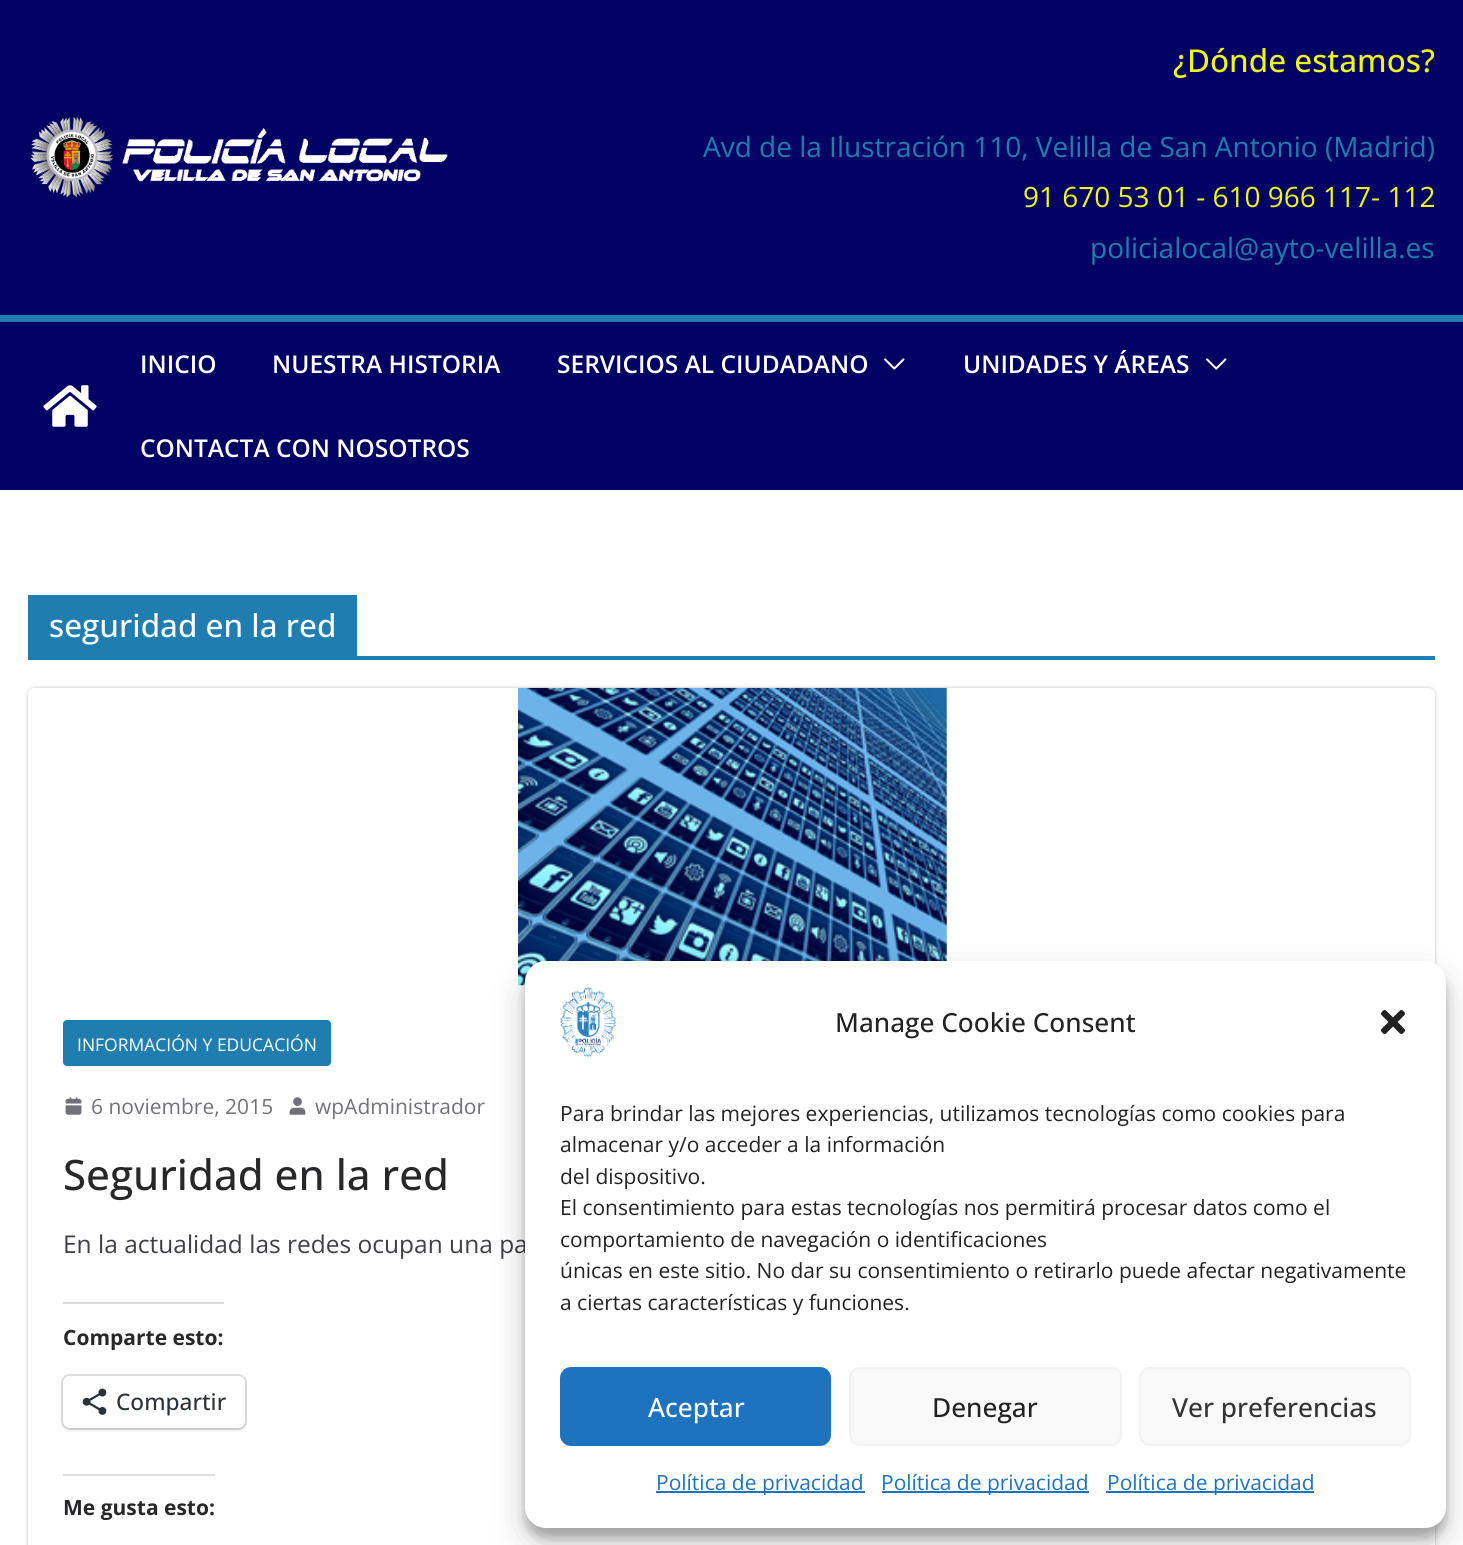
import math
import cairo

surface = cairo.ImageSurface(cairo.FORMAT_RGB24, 1463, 1545)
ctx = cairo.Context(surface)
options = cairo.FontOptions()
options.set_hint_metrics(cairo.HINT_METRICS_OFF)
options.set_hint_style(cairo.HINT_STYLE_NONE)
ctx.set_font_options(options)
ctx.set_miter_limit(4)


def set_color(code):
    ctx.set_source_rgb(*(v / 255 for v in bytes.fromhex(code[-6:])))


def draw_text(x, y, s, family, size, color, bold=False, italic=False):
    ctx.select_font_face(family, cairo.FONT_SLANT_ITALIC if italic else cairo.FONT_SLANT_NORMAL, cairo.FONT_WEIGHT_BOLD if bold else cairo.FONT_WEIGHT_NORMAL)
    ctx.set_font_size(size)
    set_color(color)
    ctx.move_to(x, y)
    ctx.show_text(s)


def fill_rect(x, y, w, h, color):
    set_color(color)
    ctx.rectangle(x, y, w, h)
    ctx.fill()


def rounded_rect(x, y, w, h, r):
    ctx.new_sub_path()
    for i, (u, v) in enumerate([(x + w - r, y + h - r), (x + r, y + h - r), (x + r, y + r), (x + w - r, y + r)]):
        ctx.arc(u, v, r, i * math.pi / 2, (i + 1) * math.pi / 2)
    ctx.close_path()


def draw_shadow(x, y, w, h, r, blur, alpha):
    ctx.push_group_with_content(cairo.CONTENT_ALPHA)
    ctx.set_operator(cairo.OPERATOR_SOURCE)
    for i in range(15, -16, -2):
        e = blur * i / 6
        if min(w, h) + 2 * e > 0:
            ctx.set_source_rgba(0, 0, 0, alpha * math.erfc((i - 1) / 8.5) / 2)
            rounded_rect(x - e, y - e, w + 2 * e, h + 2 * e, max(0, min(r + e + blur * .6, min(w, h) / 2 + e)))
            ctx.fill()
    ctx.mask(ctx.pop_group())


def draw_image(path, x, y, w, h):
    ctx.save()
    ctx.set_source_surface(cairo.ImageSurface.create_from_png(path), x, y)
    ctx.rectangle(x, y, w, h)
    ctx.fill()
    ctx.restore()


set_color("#020264")
ctx.paint()
draw_image("assets/img1.png", 30, 117, 418, 81)
draw_text(1173, 72, "¿Dónde estamos?", "Open Sans Medium", 31.5, "#f1f90a")
draw_text(703, 157, "Avd de la Ilustración 110, Velilla de San Antonio (Madrid)", "Open Sans", 28, "#207daf")
draw_text(1023, 207, "91 670 53 01 - 610 966 117- 112", "Open Sans", 28, "#f1f90a")
draw_text(1090, 258, "policialocal@ayto-velilla.es", "Open Sans", 28, "#207daf")
fill_rect(0, 315, 1463, 7, "#207daf")
draw_image("assets/img2.png", 43, 385, 54, 42)
draw_text(140, 373, "INICIO", "Open Sans SemiBold", 24.5, "#ffffff")
draw_text(272, 373, "NUESTRA HISTORIA", "Open Sans SemiBold", 24.5, "#ffffff")
draw_text(557, 373, "SERVICIOS AL CIUDADANO", "Open Sans SemiBold", 24.5, "#ffffff")
draw_image("assets/img3.png", 884, 358, 21, 12)
draw_text(963, 373, "UNIDADES Y ÁREAS", "Open Sans SemiBold", 24.5, "#ffffff")
draw_image("assets/img3.png", 1206, 358, 21, 12)
draw_text(140, 457, "CONTACTA CON NOSOTROS", "Open Sans SemiBold", 24.5, "#ffffff")
fill_rect(0, 490, 1463, 1055, "#ffffff")
fill_rect(28, 656, 1407, 4, "#207daf")
fill_rect(28, 595, 329, 61, "#207daf")
draw_text(49, 637, "seguridad en la red", "Open Sans Medium", 31.5, "#ffffff")
ctx.save()
ctx.set_fill_rule(cairo.FILL_RULE_EVEN_ODD)
ctx.new_path()
ctx.move_to(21, 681)
ctx.line_to(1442, 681)
ctx.line_to(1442, 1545)
ctx.line_to(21, 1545)
ctx.close_path()
ctx.move_to(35, 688)
ctx.line_to(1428, 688)
ctx.curve_to(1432, 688, 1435, 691, 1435, 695)
ctx.line_to(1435, 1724)
ctx.curve_to(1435, 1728, 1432, 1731, 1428, 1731)
ctx.line_to(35, 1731)
ctx.curve_to(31, 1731, 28, 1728, 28, 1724)
ctx.line_to(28, 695)
ctx.curve_to(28, 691, 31, 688, 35, 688)
ctx.close_path()
ctx.clip()
set_color("#000000")
draw_shadow(28, 688, 1407, 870, 7, 2, 0.24)
ctx.restore()
draw_image("assets/img4.png", 518, 687, 429, 299)
set_color("#207daf")
rounded_rect(63, 1020, 268, 46, 4)
ctx.fill()
draw_text(77, 1051, "INFORMACIÓN Y EDUCACIÓN", "Open Sans", 17.5, "#ffffff")
draw_image("assets/img5.png", 65, 1097, 17, 18)
draw_text(91, 1114, "6 noviembre, 2015", "Open Sans", 21, "#71717a")
draw_image("assets/img6.png", 289, 1097, 17, 18)
draw_text(315, 1114, "wpAdministrador", "Open Sans", 21, "#71717a")
draw_text(63, 1190, "Seguridad en la red", "Open Sans Medium", 42, "#27272a")
draw_text(63, 1253, "En la actualidad las redes ocupan una pa", "Open Sans", 24.5, "#3f3f46")
fill_rect(63, 1302, 161, 2, "#dcdcde")
draw_text(63, 1345, "Comparte esto:", "Open Sans", 21, "#27272a", bold=True)
rounded_rect(62, 1375, 184, 54, 8)
set_color("#e0e0e0")
ctx.stroke()
set_color("#000000")
draw_shadow(63, 1377, 182, 53, 7, 2, 0.12)
set_color("#ffffff")
rounded_rect(63, 1376, 182, 52, 7)
ctx.fill()
draw_image("assets/img7.png", 82, 1388, 25, 27)
draw_text(116, 1410, "Compartir", "Open Sans Medium", 22.75, "#2c3338")
fill_rect(63, 1474, 152, 2, "#dcdcde")
draw_text(63, 1515, "Me gusta esto:", "Open Sans", 21, "#27272a", bold=True)
set_color("#000000")
draw_shadow(525, 971, 921, 567, 21, 5, 0.23)
draw_shadow(525, 978, 921, 567, 21, 17.5, 0.19)
set_color("#ffffff")
rounded_rect(525, 961, 921, 567, 21)
ctx.fill()
draw_image("assets/img8.png", 560, 987, 56, 71)
draw_text(835, 1032, "Manage Cookie Consent", "Open Sans Medium", 26.25, "#222222")
draw_image("assets/img9.png", 1381, 1010, 24, 24)
draw_text(560, 1121, "Para brindar las mejores experiencias, utilizamos tecnologías como cookies para", "Open Sans", 21, "#222222")
draw_text(560, 1152, "almacenar y/o acceder a la información", "Open Sans", 21, "#222222")
draw_text(560, 1184, "del dispositivo.", "Open Sans", 21, "#222222")
draw_text(560, 1215, "El consentimiento para estas tecnologías nos permitirá procesar datos como el", "Open Sans", 21, "#222222")
draw_text(560, 1247, "comportamiento de navegación o identificaciones", "Open Sans", 21, "#222222")
draw_text(560, 1278, "únicas en este sitio. No dar su consentimiento o retirarlo puede afectar negativamente", "Open Sans", 21, "#222222")
draw_text(560, 1310, "a ciertas características y funciones.", "Open Sans", 21, "#222222")
set_color("#1e73be")
rounded_rect(561, 1368, 269, 77, 10)
ctx.fill_preserve()
ctx.stroke()
draw_text(648, 1417, "Aceptar", "Open Sans Medium", 26.25, "#ffffff")
set_color("#f9f9f9")
rounded_rect(850, 1368, 271, 77, 10)
ctx.fill_preserve()
set_color("#f2f2f2")
ctx.stroke()
draw_text(932, 1417, "Denegar", "Open Sans Medium", 26.25, "#222222")
set_color("#f9f9f9")
rounded_rect(1140, 1368, 270, 77, 10)
ctx.fill_preserve()
set_color("#f2f2f2")
ctx.stroke()
draw_text(1172, 1417, "Ver preferencias", "Open Sans Medium", 26.25, "#333333")
fill_rect(656, 1491, 209, 2, "#1e73be")
draw_text(656, 1490, "Política de privacidad", "Open Sans", 21, "#1e73be")
fill_rect(882, 1491, 207, 2, "#1e73be")
draw_text(881, 1490, "Política de privacidad", "Open Sans", 21, "#1e73be")
fill_rect(1106, 1491, 208, 2, "#1e73be")
draw_text(1107, 1490, "Política de privacidad", "Open Sans", 21, "#1e73be")
surface.write_to_png("output.png")
